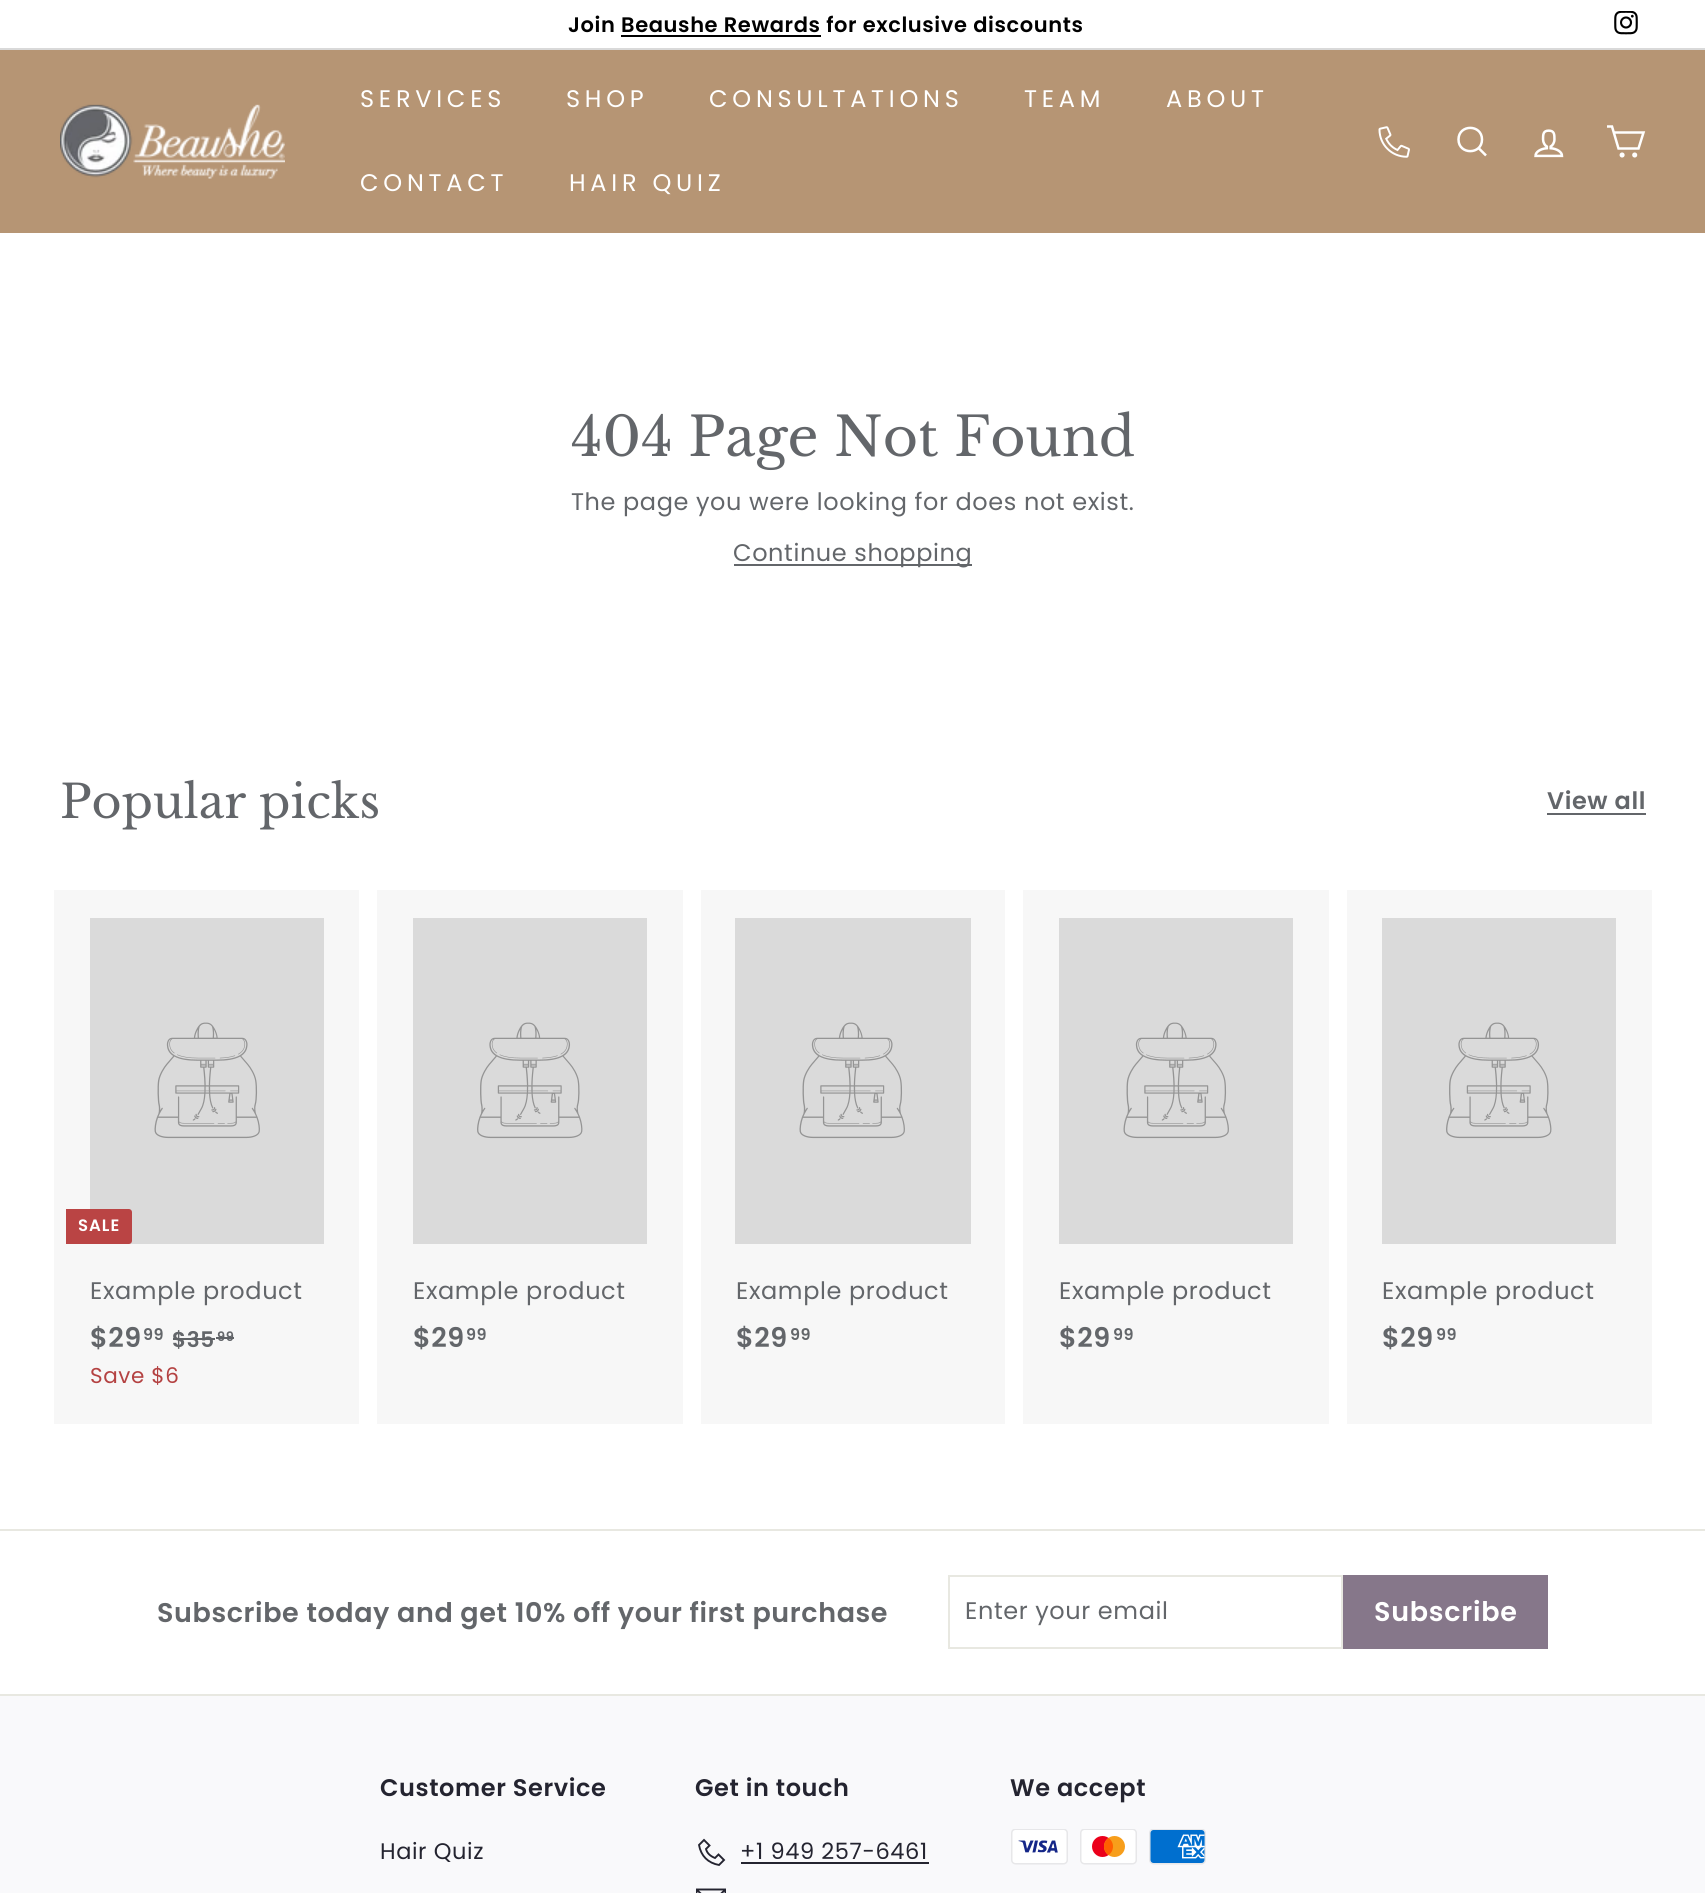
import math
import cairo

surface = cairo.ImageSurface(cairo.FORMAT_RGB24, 1705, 1893)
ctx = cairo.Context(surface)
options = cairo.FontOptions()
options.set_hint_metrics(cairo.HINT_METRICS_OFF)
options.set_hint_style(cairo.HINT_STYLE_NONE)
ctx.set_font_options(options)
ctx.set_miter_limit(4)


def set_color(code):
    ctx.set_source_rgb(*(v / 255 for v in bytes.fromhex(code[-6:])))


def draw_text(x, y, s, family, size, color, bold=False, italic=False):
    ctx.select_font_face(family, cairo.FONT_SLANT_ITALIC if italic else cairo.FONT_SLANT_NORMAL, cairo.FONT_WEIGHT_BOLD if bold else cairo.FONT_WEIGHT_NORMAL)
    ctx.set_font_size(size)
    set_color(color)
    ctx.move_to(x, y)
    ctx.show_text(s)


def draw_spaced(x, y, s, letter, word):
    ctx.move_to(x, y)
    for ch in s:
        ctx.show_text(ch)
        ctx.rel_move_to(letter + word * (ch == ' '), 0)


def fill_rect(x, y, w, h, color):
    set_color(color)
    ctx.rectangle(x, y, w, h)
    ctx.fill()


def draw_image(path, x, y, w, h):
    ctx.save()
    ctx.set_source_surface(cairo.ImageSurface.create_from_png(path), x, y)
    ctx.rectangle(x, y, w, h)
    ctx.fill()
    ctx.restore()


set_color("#ffffff")
ctx.paint()
fill_rect(1347, 890, 305, 534, "#f7f7f7")
fill_rect(1023, 890, 306, 534, "#f7f7f7")
fill_rect(701, 890, 304, 534, "#f7f7f7")
fill_rect(377, 890, 306, 534, "#f7f7f7")
fill_rect(54, 890, 305, 534, "#f7f7f7")
ctx.select_font_face("Poppins SemiBold")
ctx.set_font_size(21)
set_color("#000000")
draw_spaced(568, 32, "Join Beaushe Rewards for exclusive discounts", 0.6, 0)
fill_rect(621, 35, 200, 2, "#000000")
draw_image("assets/img1.png", 1614, 11, 24, 24)
fill_rect(0, 48, 1705, 2, "#d9d9d9")
fill_rect(0, 50, 1705, 183, "#b69574")
draw_image("assets/img2.png", 60, 104, 225, 75)
ctx.select_font_face("Poppins")
ctx.set_font_size(24)
set_color("#ffffff")
draw_spaced(360, 107, "SERVICES", 4.75, 0)
draw_spaced(566, 107, "SHOP", 4.75, 0)
draw_spaced(709, 107, "CONSULTATIONS", 4.75, 0)
draw_spaced(1024, 107, "TEAM", 4.75, 0)
draw_spaced(1166, 107, "ABOUT", 4.75, 0)
draw_spaced(360, 191, "CONTACT", 4.75, 0)
draw_spaced(569, 191, "HAIR QUIZ", 4.75, 0)
draw_image("assets/img3.png", 1378, 126, 32, 32)
ctx.new_path()
ctx.move_to(1482, 139.5)
ctx.curve_to(1482, 155, 1458.5, 155, 1458.5, 139.5)
ctx.curve_to(1458.5, 124, 1482, 124, 1482, 139.5)
ctx.close_path()
ctx.move_to(1486, 155.5)
ctx.line_to(1478.5, 148)
ctx.set_line_width(2.5)
ctx.stroke()
draw_image("assets/img4.png", 1534, 129, 30, 29)
ctx.new_path()
ctx.move_to(1614, 132.5)
ctx.line_to(1643.5, 132.5)
ctx.line_to(1638.5, 148.5)
ctx.line_to(1618.5, 148.5)
ctx.line_to(1612, 126.5)
ctx.line_to(1607, 126.5)
ctx.stroke()
ctx.arc(1622.1, 155, 1.3, 0, 2 * math.pi)
ctx.stroke()
ctx.arc(1634.7, 155, 1.3, 0, 2 * math.pi)
ctx.stroke()
draw_text(571, 456, "404 Page Not Found", "Libre Baskerville", 54, "#63666a")
ctx.select_font_face("Poppins")
ctx.set_font_size(24)
draw_spaced(571, 510, "The page you were looking for does not exist.", 0.6, 0)
fill_rect(734, 564, 238, 2, "#63666a")
draw_spaced(733, 561, "Continue shopping", 0.6, 0)
draw_text(60, 818, "Popular picks", "Libre Baskerville", 46, "#63666a")
ctx.select_font_face("Poppins SemiBold")
ctx.set_font_size(24)
draw_spaced(1547, 809, "View all", 0.6, 0)
fill_rect(1547, 813, 99, 2, "#63666a")
fill_rect(90, 918, 234, 326, "#dadada")
draw_image("assets/img5.png", 154, 1022, 106, 117)
set_color("#ba4444")
ctx.new_path()
ctx.move_to(66, 1209)
ctx.line_to(129, 1209)
ctx.curve_to(130.5, 1209, 132, 1210.5, 132, 1212)
ctx.line_to(132, 1241)
ctx.curve_to(132, 1242.5, 130.5, 1244, 129, 1244)
ctx.line_to(66, 1244)
ctx.close_path()
ctx.fill()
ctx.set_font_size(16.5)
set_color("#ffffff")
draw_spaced(78, 1231, "SALE", 1, 0)
ctx.select_font_face("Poppins")
ctx.set_font_size(24)
set_color("#63666a")
draw_spaced(90, 1299, "Example product", 0.6, 0)
ctx.select_font_face("Poppins SemiBold")
ctx.set_font_size(27)
draw_spaced(90, 1347, "$29", 0.6, 0)
ctx.set_font_size(16)
draw_spaced(143, 1340, "99", 0.6, 0)
ctx.set_font_size(21.5)
draw_spaced(172, 1347, "$35", 0.6, 0)
fill_rect(173, 1338, 42, 2, "#606367")
ctx.set_font_size(13)
set_color("#63666a")
draw_spaced(217, 1341, "99", 0.6, 0)
fill_rect(216, 1337, 18, 2, "#606367")
ctx.select_font_face("Poppins")
ctx.set_font_size(21.5)
set_color("#b44242")
draw_spaced(90, 1383, "Save $6", 0.6, 0)
fill_rect(413, 918, 234, 326, "#dadada")
draw_image("assets/img6.png", 477, 1022, 106, 117)
ctx.set_font_size(24)
set_color("#63666a")
draw_spaced(413, 1299, "Example product", 0.6, 0)
ctx.select_font_face("Poppins SemiBold")
ctx.set_font_size(27)
draw_spaced(413, 1347, "$29", 0.6, 0)
ctx.set_font_size(16)
draw_spaced(466, 1340, "99", 0.6, 0)
fill_rect(735, 918, 236, 326, "#dadada")
draw_image("assets/img5.png", 799, 1022, 106, 117)
ctx.select_font_face("Poppins")
ctx.set_font_size(24)
set_color("#63666a")
draw_spaced(736, 1299, "Example product", 0.6, 0)
ctx.select_font_face("Poppins SemiBold")
ctx.set_font_size(27)
draw_spaced(736, 1347, "$29", 0.6, 0)
ctx.set_font_size(16)
draw_spaced(790, 1340, "99", 0.6, 0)
fill_rect(1059, 918, 234, 326, "#dadada")
draw_image("assets/img5.png", 1123, 1022, 106, 117)
ctx.select_font_face("Poppins")
ctx.set_font_size(24)
set_color("#63666a")
draw_spaced(1059, 1299, "Example product", 0.6, 0)
ctx.select_font_face("Poppins SemiBold")
ctx.set_font_size(27)
draw_spaced(1059, 1347, "$29", 0.6, 0)
ctx.set_font_size(16)
draw_spaced(1113, 1340, "99", 0.6, 0)
fill_rect(1382, 918, 234, 326, "#dadada")
draw_image("assets/img6.png", 1446, 1022, 106, 117)
ctx.select_font_face("Poppins")
ctx.set_font_size(24)
set_color("#63666a")
draw_spaced(1382, 1299, "Example product", 0.6, 0)
ctx.select_font_face("Poppins SemiBold")
ctx.set_font_size(27)
draw_spaced(1382, 1347, "$29", 0.6, 0)
ctx.set_font_size(16)
draw_spaced(1436, 1340, "99", 0.6, 0)
fill_rect(0, 1529, 1705, 2, "#e8e8e1")
ctx.set_font_size(27)
set_color("#63666a")
draw_spaced(157, 1622, "Subscribe today and get 10% off your first purchase", 0.6, 0)
ctx.rectangle(949, 1576, 393, 72)
set_color("#e8e8e1")
ctx.set_line_width(2)
ctx.stroke()
ctx.select_font_face("Poppins")
ctx.set_font_size(24)
set_color("#63666a")
draw_spaced(965, 1619, "Enter your email", 0.6, 0)
fill_rect(1343, 1575, 205, 74, "#86778a")
ctx.select_font_face("Poppins SemiBold")
ctx.set_font_size(27)
set_color("#ffffff")
draw_spaced(1374, 1621, "Subscribe", 0.75, 0)
fill_rect(0, 1696, 1705, 197, "#f9f9fb")
fill_rect(0, 1694, 1705, 2, "#e8e8e1")
ctx.set_font_size(24)
set_color("#242430")
draw_spaced(380, 1796, "Customer Service", 0.6, 0)
ctx.select_font_face("Poppins")
ctx.set_font_size(22.5)
draw_spaced(380, 1859, "Hair Quiz", 0.6, 0)
ctx.select_font_face("Poppins SemiBold")
ctx.set_font_size(24)
draw_spaced(695, 1796, "Get in touch", 0.6, 0)
ctx.new_path()
ctx.move_to(704, 1840)
ctx.line_to(709.5, 1845.5)
ctx.line_to(706, 1849)
ctx.curve_to(707, 1853, 710, 1856, 715, 1858)
ctx.line_to(718.5, 1854.5)
ctx.line_to(724, 1860)
ctx.line_to(719, 1865)
ctx.curve_to(708, 1863, 701, 1856, 699, 1845)
ctx.close_path()
ctx.set_line_width(1.9)
ctx.stroke()
ctx.select_font_face("Poppins")
ctx.set_font_size(22.5)
draw_spaced(740, 1859, "+1 949 257-6461", 0.6, 0)
fill_rect(741, 1862, 188, 2, "#242430")
ctx.save()
ctx.rectangle(696, 1884, 30, 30)
ctx.clip()
ctx.new_path()
ctx.move_to(725.5, 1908.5)
ctx.line_to(696.5, 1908.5)
ctx.line_to(696.5, 1889.5)
ctx.line_to(725.5, 1889.5)
ctx.close_path()
ctx.move_to(696.5, 1889.5)
ctx.line_to(708.5, 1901)
ctx.line_to(713, 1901)
ctx.line_to(725.5, 1889.5)
ctx.move_to(706, 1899)
ctx.line_to(696.5, 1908)
ctx.move_to(725, 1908.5)
ctx.line_to(715.5, 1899)
ctx.stroke()
ctx.restore()
ctx.select_font_face("Poppins SemiBold")
ctx.set_font_size(24)
draw_spaced(1010, 1796, "We accept", 0.6, 0)
draw_image("assets/img7.png", 1011, 1829, 57, 36)
draw_image("assets/img8.png", 1080, 1829, 57, 36)
draw_image("assets/img9.png", 1149, 1829, 57, 36)
surface.write_to_png("output.png")
